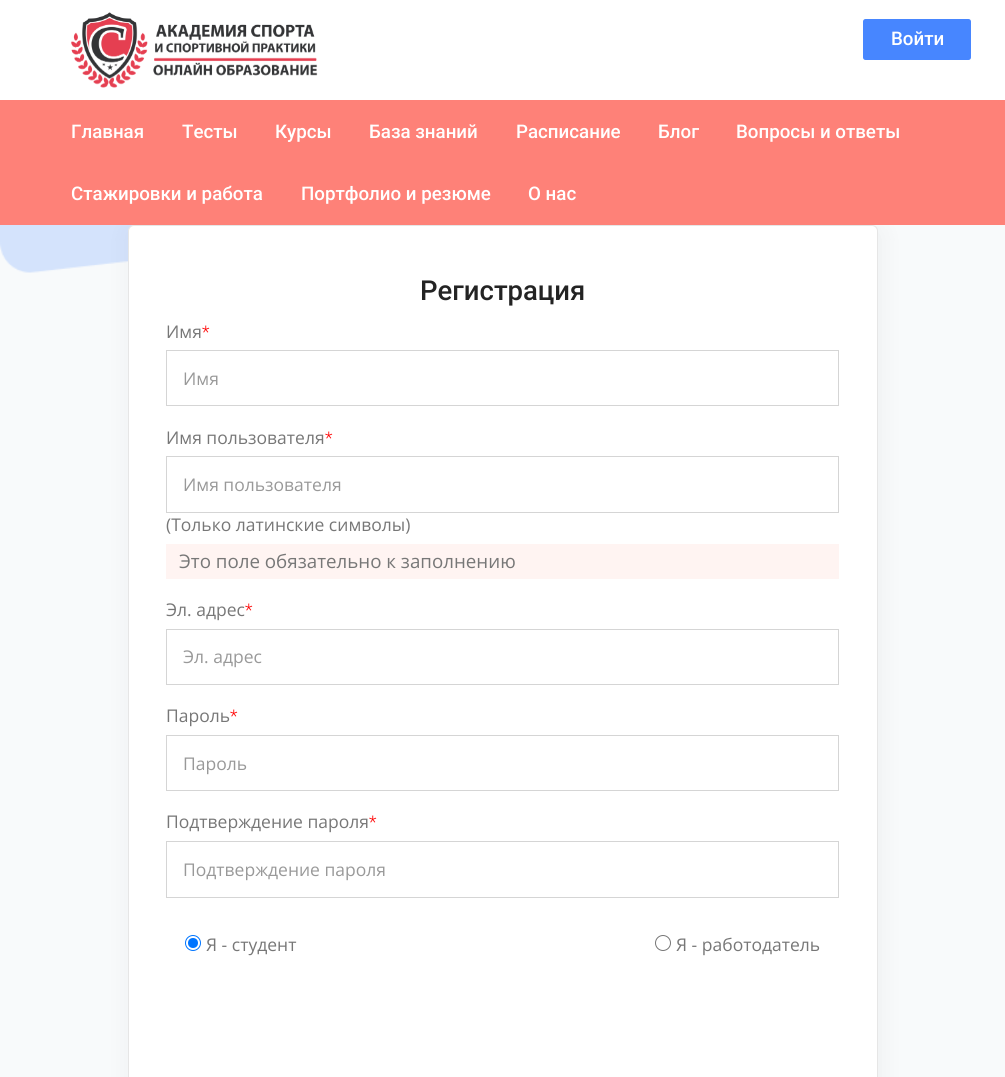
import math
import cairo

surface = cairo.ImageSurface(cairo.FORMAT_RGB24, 1005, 1077)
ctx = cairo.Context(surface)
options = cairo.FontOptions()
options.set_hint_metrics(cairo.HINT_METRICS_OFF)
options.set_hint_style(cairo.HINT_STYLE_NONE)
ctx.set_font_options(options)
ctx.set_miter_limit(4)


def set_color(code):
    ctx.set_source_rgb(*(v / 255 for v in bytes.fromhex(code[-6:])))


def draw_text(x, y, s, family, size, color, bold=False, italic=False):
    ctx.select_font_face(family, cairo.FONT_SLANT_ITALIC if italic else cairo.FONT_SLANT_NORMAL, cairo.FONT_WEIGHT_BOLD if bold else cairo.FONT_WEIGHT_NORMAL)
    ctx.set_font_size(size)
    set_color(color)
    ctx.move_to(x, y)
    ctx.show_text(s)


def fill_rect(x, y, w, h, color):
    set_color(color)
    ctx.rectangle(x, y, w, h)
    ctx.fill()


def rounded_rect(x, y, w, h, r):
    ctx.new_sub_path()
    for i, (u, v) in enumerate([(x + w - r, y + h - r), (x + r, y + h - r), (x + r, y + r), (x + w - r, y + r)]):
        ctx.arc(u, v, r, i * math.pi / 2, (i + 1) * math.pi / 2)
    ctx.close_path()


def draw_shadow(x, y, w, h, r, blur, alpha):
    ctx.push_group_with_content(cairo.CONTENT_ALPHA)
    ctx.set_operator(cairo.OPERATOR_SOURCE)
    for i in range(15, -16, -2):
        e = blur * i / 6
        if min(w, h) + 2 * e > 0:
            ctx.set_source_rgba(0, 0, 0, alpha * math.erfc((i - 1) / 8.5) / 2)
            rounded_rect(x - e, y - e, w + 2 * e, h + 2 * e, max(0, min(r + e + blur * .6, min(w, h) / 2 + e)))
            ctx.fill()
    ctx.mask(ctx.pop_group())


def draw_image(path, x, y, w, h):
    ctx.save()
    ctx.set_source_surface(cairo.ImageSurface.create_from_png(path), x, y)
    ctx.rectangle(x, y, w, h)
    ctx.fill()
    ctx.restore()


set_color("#f8fafb")
ctx.paint()
draw_image("assets/img2.png", 0, 225, 134, 48)
set_color("#010101")
draw_shadow(130, 229, 750, 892, 6, 12.5, 0.05)
fill_rect(0, 100, 1005, 125, "#fe8178")
fill_rect(0, 0, 1005, 100, "#ffffff")
draw_image("assets/img1.png", 71, 12, 247, 76)
set_color("#4786ff")
rounded_rect(863, 19, 108, 41, 2.5)
ctx.fill()
draw_text(891, 45, "Войти", "Roboto Medium", 18.75, "#ffffff")
draw_text(71, 138, "Главная", "Roboto Medium", 18.75, "#ffffff")
draw_text(182, 138, "Тесты", "Roboto Medium", 18.75, "#ffffff")
draw_text(275, 138, "Курсы", "Roboto Medium", 18.75, "#ffffff")
draw_text(369, 138, "База знаний", "Roboto Medium", 18.75, "#ffffff")
draw_text(516, 138, "Расписание", "Roboto Medium", 18.75, "#ffffff")
draw_text(658, 138, "Блог", "Roboto Medium", 18.75, "#ffffff")
draw_text(736, 138, "Вопросы и ответы", "Roboto Medium", 18.75, "#ffffff")
draw_text(71, 200, "Стажировки и работа", "Roboto Medium", 18.75, "#ffffff")
draw_text(301, 200, "Портфолио и резюме", "Roboto Medium", 18.75, "#ffffff")
draw_text(528, 200, "О нас", "Roboto Medium", 18.75, "#ffffff")
rounded_rect(128.5, 225.5, 749, 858, 5.5)
ctx.fill_preserve()
set_color("#e6e6e6")
ctx.set_line_width(1)
ctx.stroke()
draw_text(420, 300, "Регистрация", "Roboto Medium", 27.5, "#232323")
draw_text(166, 338, "Имя", "Open Sans", 17.5, "#777777")
draw_text(202, 338, "*", "Roboto Light", 17.5, "#ff0000")
ctx.rectangle(166.5, 350.5, 672, 55)
set_color("#d5d5d5")
ctx.stroke()
draw_text(183, 385, "Имя", "Open Sans", 17.5, "#999999")
draw_text(166, 444, "Имя пользователя", "Open Sans", 17.5, "#777777")
draw_text(325, 444, "*", "Roboto Light", 17.5, "#ff0000")
ctx.rectangle(166.5, 456.5, 672, 56)
set_color("#d5d5d5")
ctx.stroke()
draw_text(183, 491, "Имя пользователя", "Open Sans", 17.5, "#999999")
draw_text(166, 531, "(Только латинские символы)", "Open Sans", 17.5, "#777777")
fill_rect(166, 544, 673, 35, "#fff4f2")
draw_text(179, 568, "Это поле обязательно к заполнению", "Open Sans", 18.75, "#777777")
draw_text(166, 616, "Эл. адрес", "Open Sans", 17.5, "#777777")
draw_text(245, 616, "*", "Roboto Light", 17.5, "#ff0000")
ctx.rectangle(166.5, 629.5, 672, 55)
set_color("#d5d5d5")
ctx.stroke()
draw_text(183, 663, "Эл. адрес", "Open Sans", 17.5, "#999999")
draw_text(166, 722, "Пароль", "Open Sans", 17.5, "#777777")
draw_text(230, 722, "*", "Roboto Light", 17.5, "#ff0000")
ctx.rectangle(166.5, 735.5, 672, 55)
set_color("#d5d5d5")
ctx.stroke()
draw_text(183, 770, "Пароль", "Open Sans", 17.5, "#999999")
draw_text(166, 828, "Подтверждение пароля", "Open Sans", 17.5, "#777777")
draw_text(369, 828, "*", "Roboto Light", 17.5, "#ff0000")
ctx.rectangle(166.5, 841.5, 672, 56)
set_color("#d5d5d5")
ctx.stroke()
draw_text(183, 876, "Подтверждение пароля", "Open Sans", 17.5, "#999999")
ctx.new_path()
ctx.arc(193, 943, 7.5, 0, 2 * math.pi)
set_color("#0075ff")
ctx.stroke()
ctx.arc(193, 943, 5, 0, 2 * math.pi)
ctx.fill()
draw_text(206, 951, "Я - студент", "Open Sans", 17.5, "#777777")
ctx.new_path()
ctx.arc(663, 943, 7.5, 0, 2 * math.pi)
set_color("#767676")
ctx.stroke()
draw_text(676, 951, "Я - работодатель", "Open Sans", 17.5, "#777777")
surface.write_to_png("output.png")
